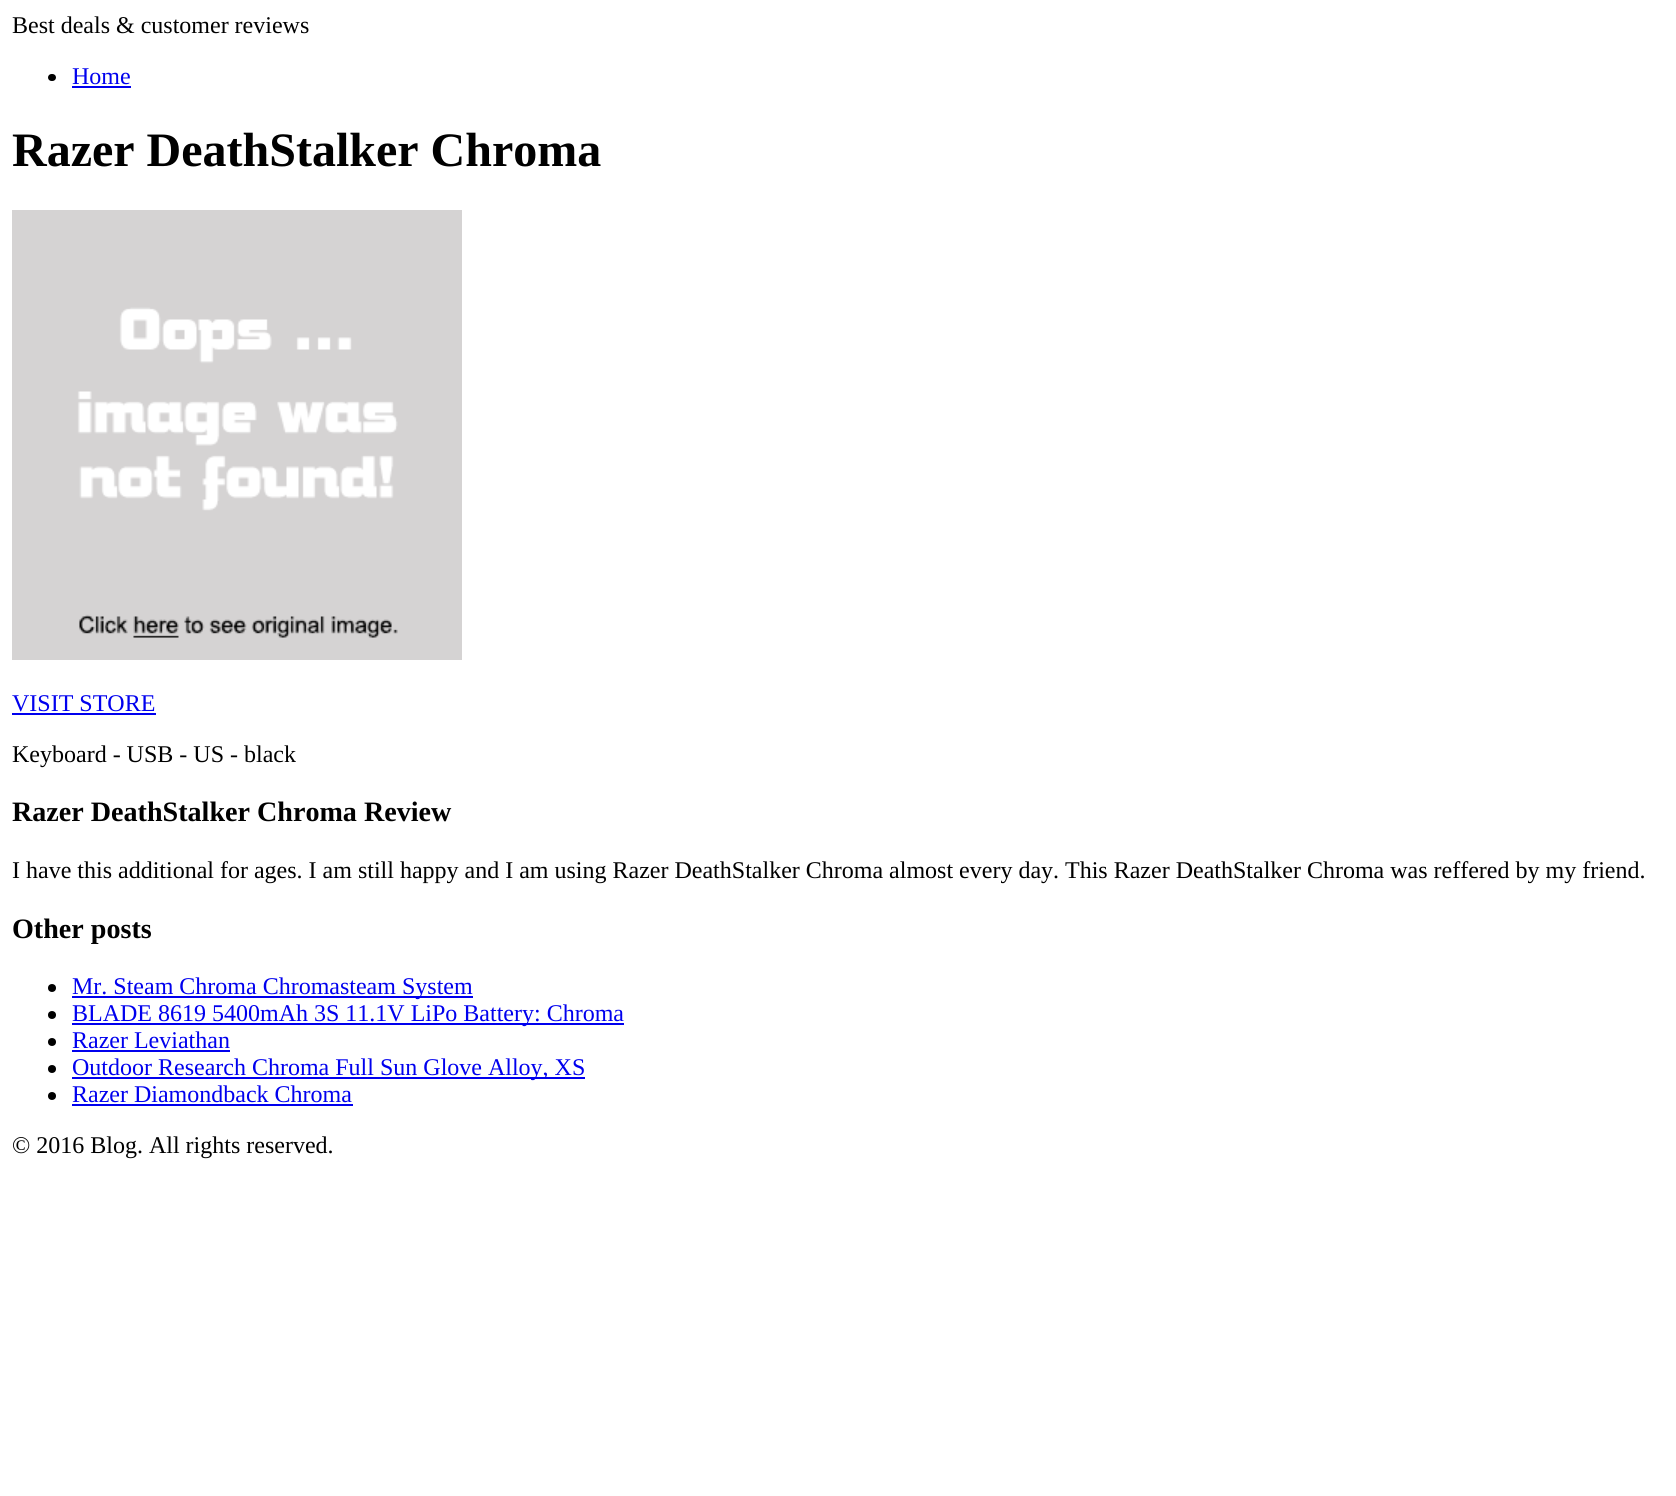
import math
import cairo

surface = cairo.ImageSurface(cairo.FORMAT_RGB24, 1676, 1496)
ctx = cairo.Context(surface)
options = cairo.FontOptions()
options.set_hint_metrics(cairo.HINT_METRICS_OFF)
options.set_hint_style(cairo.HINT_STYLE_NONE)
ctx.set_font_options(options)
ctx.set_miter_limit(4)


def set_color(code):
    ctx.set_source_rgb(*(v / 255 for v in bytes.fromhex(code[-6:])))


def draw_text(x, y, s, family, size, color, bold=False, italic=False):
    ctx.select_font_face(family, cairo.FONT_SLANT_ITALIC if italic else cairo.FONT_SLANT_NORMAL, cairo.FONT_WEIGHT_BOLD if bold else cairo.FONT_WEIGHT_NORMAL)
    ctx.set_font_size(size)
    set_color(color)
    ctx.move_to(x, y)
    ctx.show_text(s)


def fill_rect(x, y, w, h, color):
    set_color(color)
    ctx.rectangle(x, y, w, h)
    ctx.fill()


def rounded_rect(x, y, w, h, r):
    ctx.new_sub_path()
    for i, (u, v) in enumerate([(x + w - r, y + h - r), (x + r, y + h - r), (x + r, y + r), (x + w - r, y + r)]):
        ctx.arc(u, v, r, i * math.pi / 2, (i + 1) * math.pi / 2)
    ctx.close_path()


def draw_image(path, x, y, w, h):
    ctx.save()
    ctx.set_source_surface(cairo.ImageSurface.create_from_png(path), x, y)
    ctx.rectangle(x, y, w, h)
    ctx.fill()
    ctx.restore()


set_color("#ffffff")
ctx.paint()
draw_text(12, 33, "Best deals & customer reviews", "Liberation Serif", 24, "#000000")
rounded_rect(48, 74, 8, 7, 3.5)
ctx.fill()
draw_text(72, 84, "Home", "Liberation Serif", 24, "#0000ee")
fill_rect(72, 86, 59, 2, "#0000ee")
draw_text(12, 166, "Razer DeathStalker Chroma", "Liberation Serif", 48, "#000000", bold=True)
draw_image("assets/img1.png", 12, 210, 450, 450)
draw_text(12, 711, "VISIT STORE", "Liberation Serif", 24, "#0000ee")
fill_rect(12, 713, 144, 2, "#0000ee")
draw_text(12, 762, "Keyboard - USB - US - black", "Liberation Serif", 24, "#000000")
draw_text(12, 821, "Razer DeathStalker Chroma Review", "Liberation Serif", 28.1, "#000000", bold=True)
draw_text(12, 878, "I have this additional for ages. I am still happy and I am using Razer DeathStalker Chroma almost every day. This Razer DeathStalker Chroma was reffered by my friend.", "Liberation Serif", 24, "#000000")
draw_text(12, 938, "Other posts", "Liberation Serif", 28.1, "#000000", bold=True)
ctx.new_path()
ctx.arc(52, 988, 4, 0, 2 * math.pi)
ctx.fill()
fill_rect(72, 996, 401, 2, "#0000ee")
draw_text(72, 994, "Mr. Steam Chroma Chromasteam System", "Liberation Serif", 24, "#0000ee")
set_color("#000000")
ctx.new_path()
ctx.arc(52, 1015, 4, 0, 2 * math.pi)
ctx.fill()
fill_rect(72, 1023, 552, 2, "#0000ee")
draw_text(72, 1021, "BLADE 8619 5400mAh 3S 11.1V LiPo Battery: Chroma", "Liberation Serif", 24, "#0000ee")
set_color("#000000")
ctx.new_path()
ctx.arc(52, 1042, 4, 0, 2 * math.pi)
ctx.fill()
draw_text(72, 1048, "Razer Leviathan", "Liberation Serif", 24, "#0000ee")
fill_rect(72, 1050, 158, 2, "#0000ee")
set_color("#000000")
ctx.new_path()
ctx.arc(52, 1069, 4, 0, 2 * math.pi)
ctx.fill()
fill_rect(72, 1077, 513, 2, "#0000ee")
draw_text(72, 1075, "Outdoor Research Chroma Full Sun Glove Alloy, XS", "Liberation Serif", 24, "#0000ee")
set_color("#000000")
ctx.new_path()
ctx.arc(52, 1096, 4, 0, 2 * math.pi)
ctx.fill()
draw_text(72, 1102, "Razer Diamondback Chroma", "Liberation Serif", 24, "#0000ee")
fill_rect(72, 1104, 281, 2, "#0000ee")
draw_text(12, 1153, "© 2016 Blog. All rights reserved.", "Liberation Serif", 24, "#000000")
surface.write_to_png("output.png")
